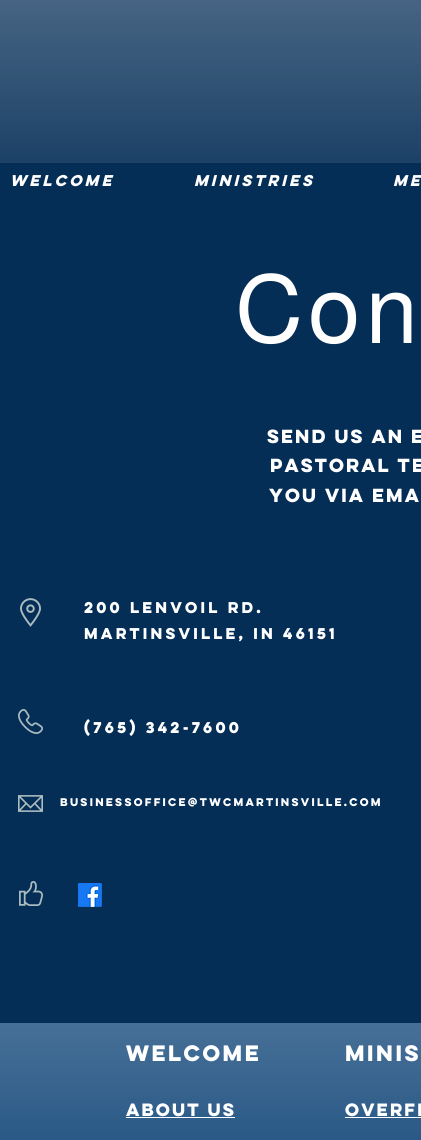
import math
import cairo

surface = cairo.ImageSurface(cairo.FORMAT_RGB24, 421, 1140)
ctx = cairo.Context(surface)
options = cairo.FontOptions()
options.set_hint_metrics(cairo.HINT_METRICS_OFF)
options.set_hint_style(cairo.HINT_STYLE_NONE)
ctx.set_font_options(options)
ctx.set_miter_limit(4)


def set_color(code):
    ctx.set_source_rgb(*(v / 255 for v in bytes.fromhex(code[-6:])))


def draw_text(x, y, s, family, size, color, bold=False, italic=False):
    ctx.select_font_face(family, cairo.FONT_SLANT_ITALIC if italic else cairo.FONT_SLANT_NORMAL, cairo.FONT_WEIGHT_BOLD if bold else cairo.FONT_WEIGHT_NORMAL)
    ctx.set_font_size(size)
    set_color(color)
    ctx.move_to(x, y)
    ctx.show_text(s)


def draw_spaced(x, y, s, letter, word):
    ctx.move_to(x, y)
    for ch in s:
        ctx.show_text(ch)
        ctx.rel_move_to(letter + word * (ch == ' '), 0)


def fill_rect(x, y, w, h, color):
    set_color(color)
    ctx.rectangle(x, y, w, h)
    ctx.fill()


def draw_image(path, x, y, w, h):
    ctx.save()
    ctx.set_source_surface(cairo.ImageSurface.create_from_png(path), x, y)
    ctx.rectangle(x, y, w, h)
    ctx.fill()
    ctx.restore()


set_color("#052e57")
ctx.paint()
draw_image("assets/img1.png", 0, 0, 421, 163)
draw_text(10, 186, "Welcome", "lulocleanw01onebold", 14, "#ffffff", bold=True, italic=True)
draw_text(194, 186, "Ministries", "lulocleanw01onebold", 14, "#ffffff", bold=True, italic=True)
draw_text(393, 186, "Me", "lulocleanw01onebold", 14, "#ffffff", bold=True, italic=True)
ctx.select_font_face("Almarai")
ctx.set_font_size(96)
draw_spaced(235, 343, "Con", 5, 0)
ctx.select_font_face("lulocleanw01onebold", cairo.FONT_SLANT_NORMAL, cairo.FONT_WEIGHT_BOLD)
ctx.set_font_size(17)
draw_spaced(267, 443, "Send us an e", -1.75, 0)
draw_spaced(270, 472, "pastoral te", -1.75, 0)
draw_spaced(269, 502, "you via ema", -1.75, 0)
draw_image("assets/img2.png", 20, 598, 21, 29)
draw_text(84, 613, "200 Lenvoil Rd.", "lulocleanw01onebold", 14, "#ffffff", bold=True)
draw_text(84, 639, "Martinsville, IN 46151", "lulocleanw01onebold", 14, "#ffffff", bold=True)
draw_image("assets/img3.png", 18, 709, 25, 25)
draw_text(84, 733, "(765) 342-7600", "lulocleanw01onebold", 14, "#ffffff", bold=True)
draw_image("assets/img4.png", 18, 795, 25, 17)
draw_text(60, 806, "businessoffice@twcmartinsville.com", "lulocleanw01onebold", 10, "#ffffff", bold=True)
draw_image("assets/img5.png", 19, 881, 24, 25)
draw_image("assets/img6.png", 78, 883, 24, 24)
fill_rect(0, 1023, 421, 117, "#073e73")
draw_image("assets/img7.png", 0, 1023, 421, 117)
ctx.set_font_size(20)
set_color("#ffffff")
draw_spaced(126, 1061, "Welcome", -2, 0)
draw_spaced(345, 1061, "Minis", -2, 0)
ctx.set_font_size(16)
draw_spaced(126, 1116, "About us", -1.5, 0)
fill_rect(126, 1117, 109, 1, "#ffffff")
draw_spaced(345, 1116, "overfl", -1.5, 0)
fill_rect(345, 1117, 76, 1, "#ffffff")
surface.write_to_png("output.png")
